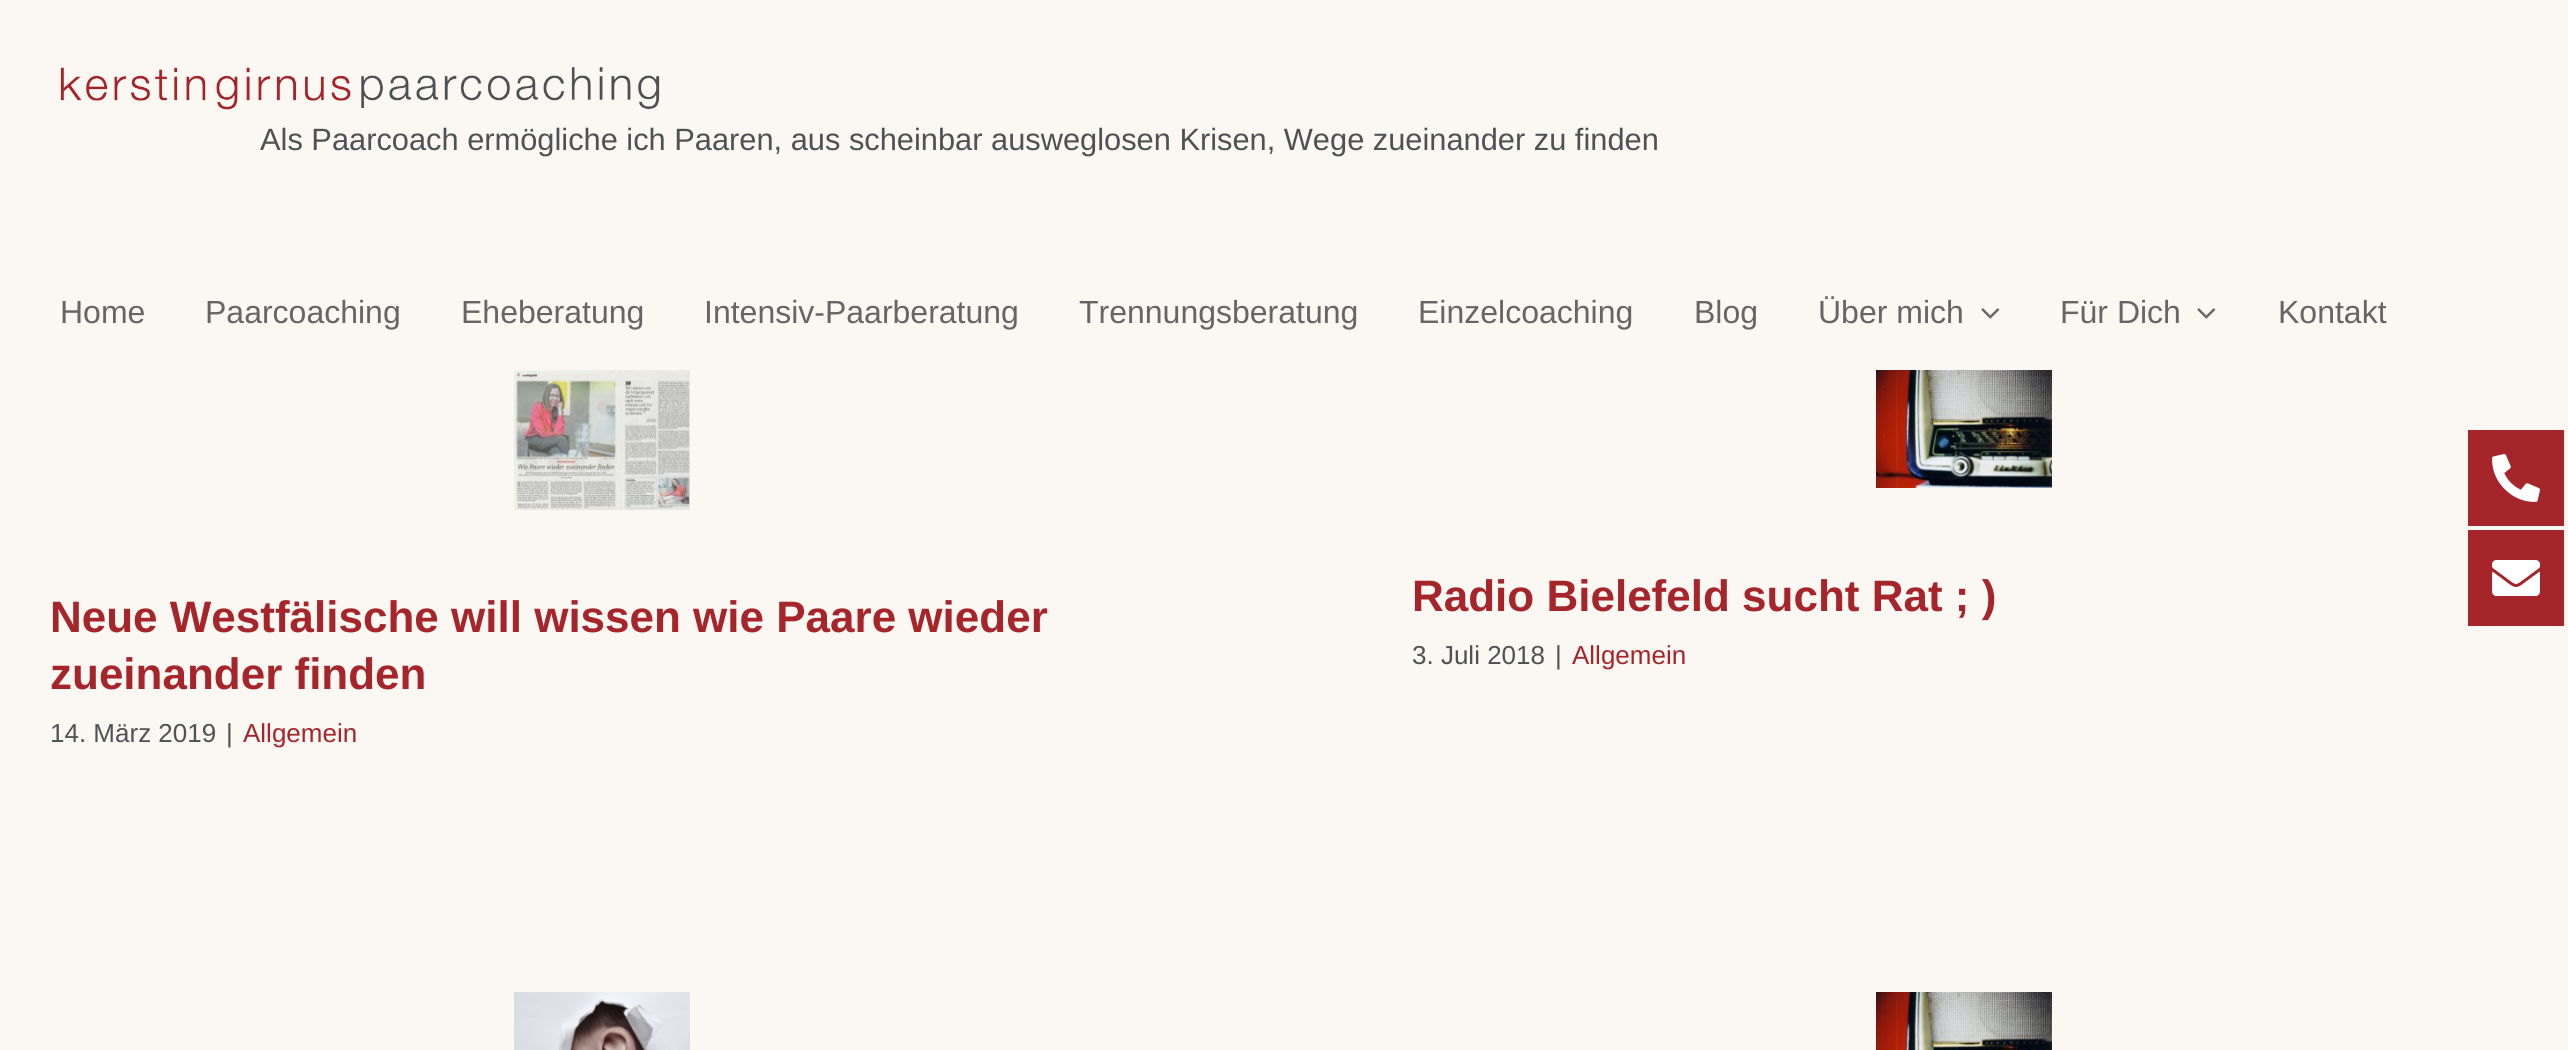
import math
import cairo

surface = cairo.ImageSurface(cairo.FORMAT_RGB24, 2568, 1050)
ctx = cairo.Context(surface)
options = cairo.FontOptions()
options.set_hint_metrics(cairo.HINT_METRICS_OFF)
options.set_hint_style(cairo.HINT_STYLE_NONE)
ctx.set_font_options(options)
ctx.set_miter_limit(4)


def set_color(code):
    ctx.set_source_rgb(*(v / 255 for v in bytes.fromhex(code[-6:])))


def draw_text(x, y, s, family, size, color, bold=False, italic=False):
    ctx.select_font_face(family, cairo.FONT_SLANT_ITALIC if italic else cairo.FONT_SLANT_NORMAL, cairo.FONT_WEIGHT_BOLD if bold else cairo.FONT_WEIGHT_NORMAL)
    ctx.set_font_size(size)
    set_color(color)
    ctx.move_to(x, y)
    ctx.show_text(s)


def fill_rect(x, y, w, h, color):
    set_color(color)
    ctx.rectangle(x, y, w, h)
    ctx.fill()


def draw_image(path, x, y, w, h):
    ctx.save()
    ctx.set_source_surface(cairo.ImageSurface.create_from_png(path), x, y)
    ctx.rectangle(x, y, w, h)
    ctx.fill()
    ctx.restore()


set_color("#fbf7f3")
ctx.paint()
draw_image("assets/img1.png", 60, 67, 600, 43)
draw_text(260, 150, "Als Paarcoach ermögliche ich Paaren, aus scheinbar ausweglosen Krisen, Wege zueinander zu finden", "Liberation Sans", 30.8, "#4f5255")
draw_text(60, 323, "Home", "Liberation Sans", 32, "#666666")
draw_text(205, 323, "Paarcoaching", "Liberation Sans", 32, "#666666")
draw_text(461, 323, "Eheberatung", "Liberation Sans", 32, "#666666")
draw_text(704, 323, "Intensiv-Paarberatung", "Liberation Sans", 32, "#666666")
draw_text(1079, 323, "Trennungsberatung", "Liberation Sans", 32, "#666666")
draw_text(1418, 323, "Einzelcoaching", "Liberation Sans", 32, "#666666")
draw_text(1694, 323, "Blog", "Liberation Sans", 32, "#666666")
draw_text(1818, 323, "Über mich", "Liberation Sans", 32, "#666666")
draw_image("assets/img2.png", 1981, 308, 19, 11)
draw_text(2060, 323, "Für Dich", "Liberation Sans", 32, "#666666")
draw_image("assets/img2.png", 2197, 308, 19, 11)
draw_text(2278, 323, "Kontakt", "Liberation Sans", 32, "#666666")
draw_image("assets/img3.png", 514, 370, 176, 140)
draw_text(50, 632, "Neue Westfälische will wissen wie Paare wieder", "Liberation Sans", 44, "#a5252b", bold=True)
draw_text(50, 689, "zueinander finden", "Liberation Sans", 44, "#a5252b", bold=True)
draw_text(50, 742, "14. März 2019", "Liberation Sans", 26, "#4f5255")
draw_text(226, 742, "|", "Liberation Sans", 26, "#4f5255")
draw_text(243, 742, "Allgemein", "Liberation Sans", 26, "#a5252b")
draw_image("assets/img4.png", 1876, 370, 176, 118)
draw_text(1412, 611, "Radio Bielefeld sucht Rat ; )", "Liberation Sans", 44, "#a5252b", bold=True)
draw_text(1412, 664, "3. Juli 2018", "Liberation Sans", 26, "#4f5255")
draw_text(1555, 664, "|", "Liberation Sans", 26, "#4f5255")
draw_text(1572, 664, "Allgemein", "Liberation Sans", 26, "#a5252b")
draw_image("assets/img5.png", 514, 992, 176, 58)
draw_image("assets/img6.png", 1876, 992, 176, 58)
fill_rect(2468, 430, 96, 96, "#a5252b")
draw_image("assets/img7.png", 2492, 454, 48, 48)
fill_rect(2468, 530, 96, 96, "#a5252b")
draw_image("assets/img8.png", 2492, 560, 48, 36)
surface.write_to_png("output.png")
